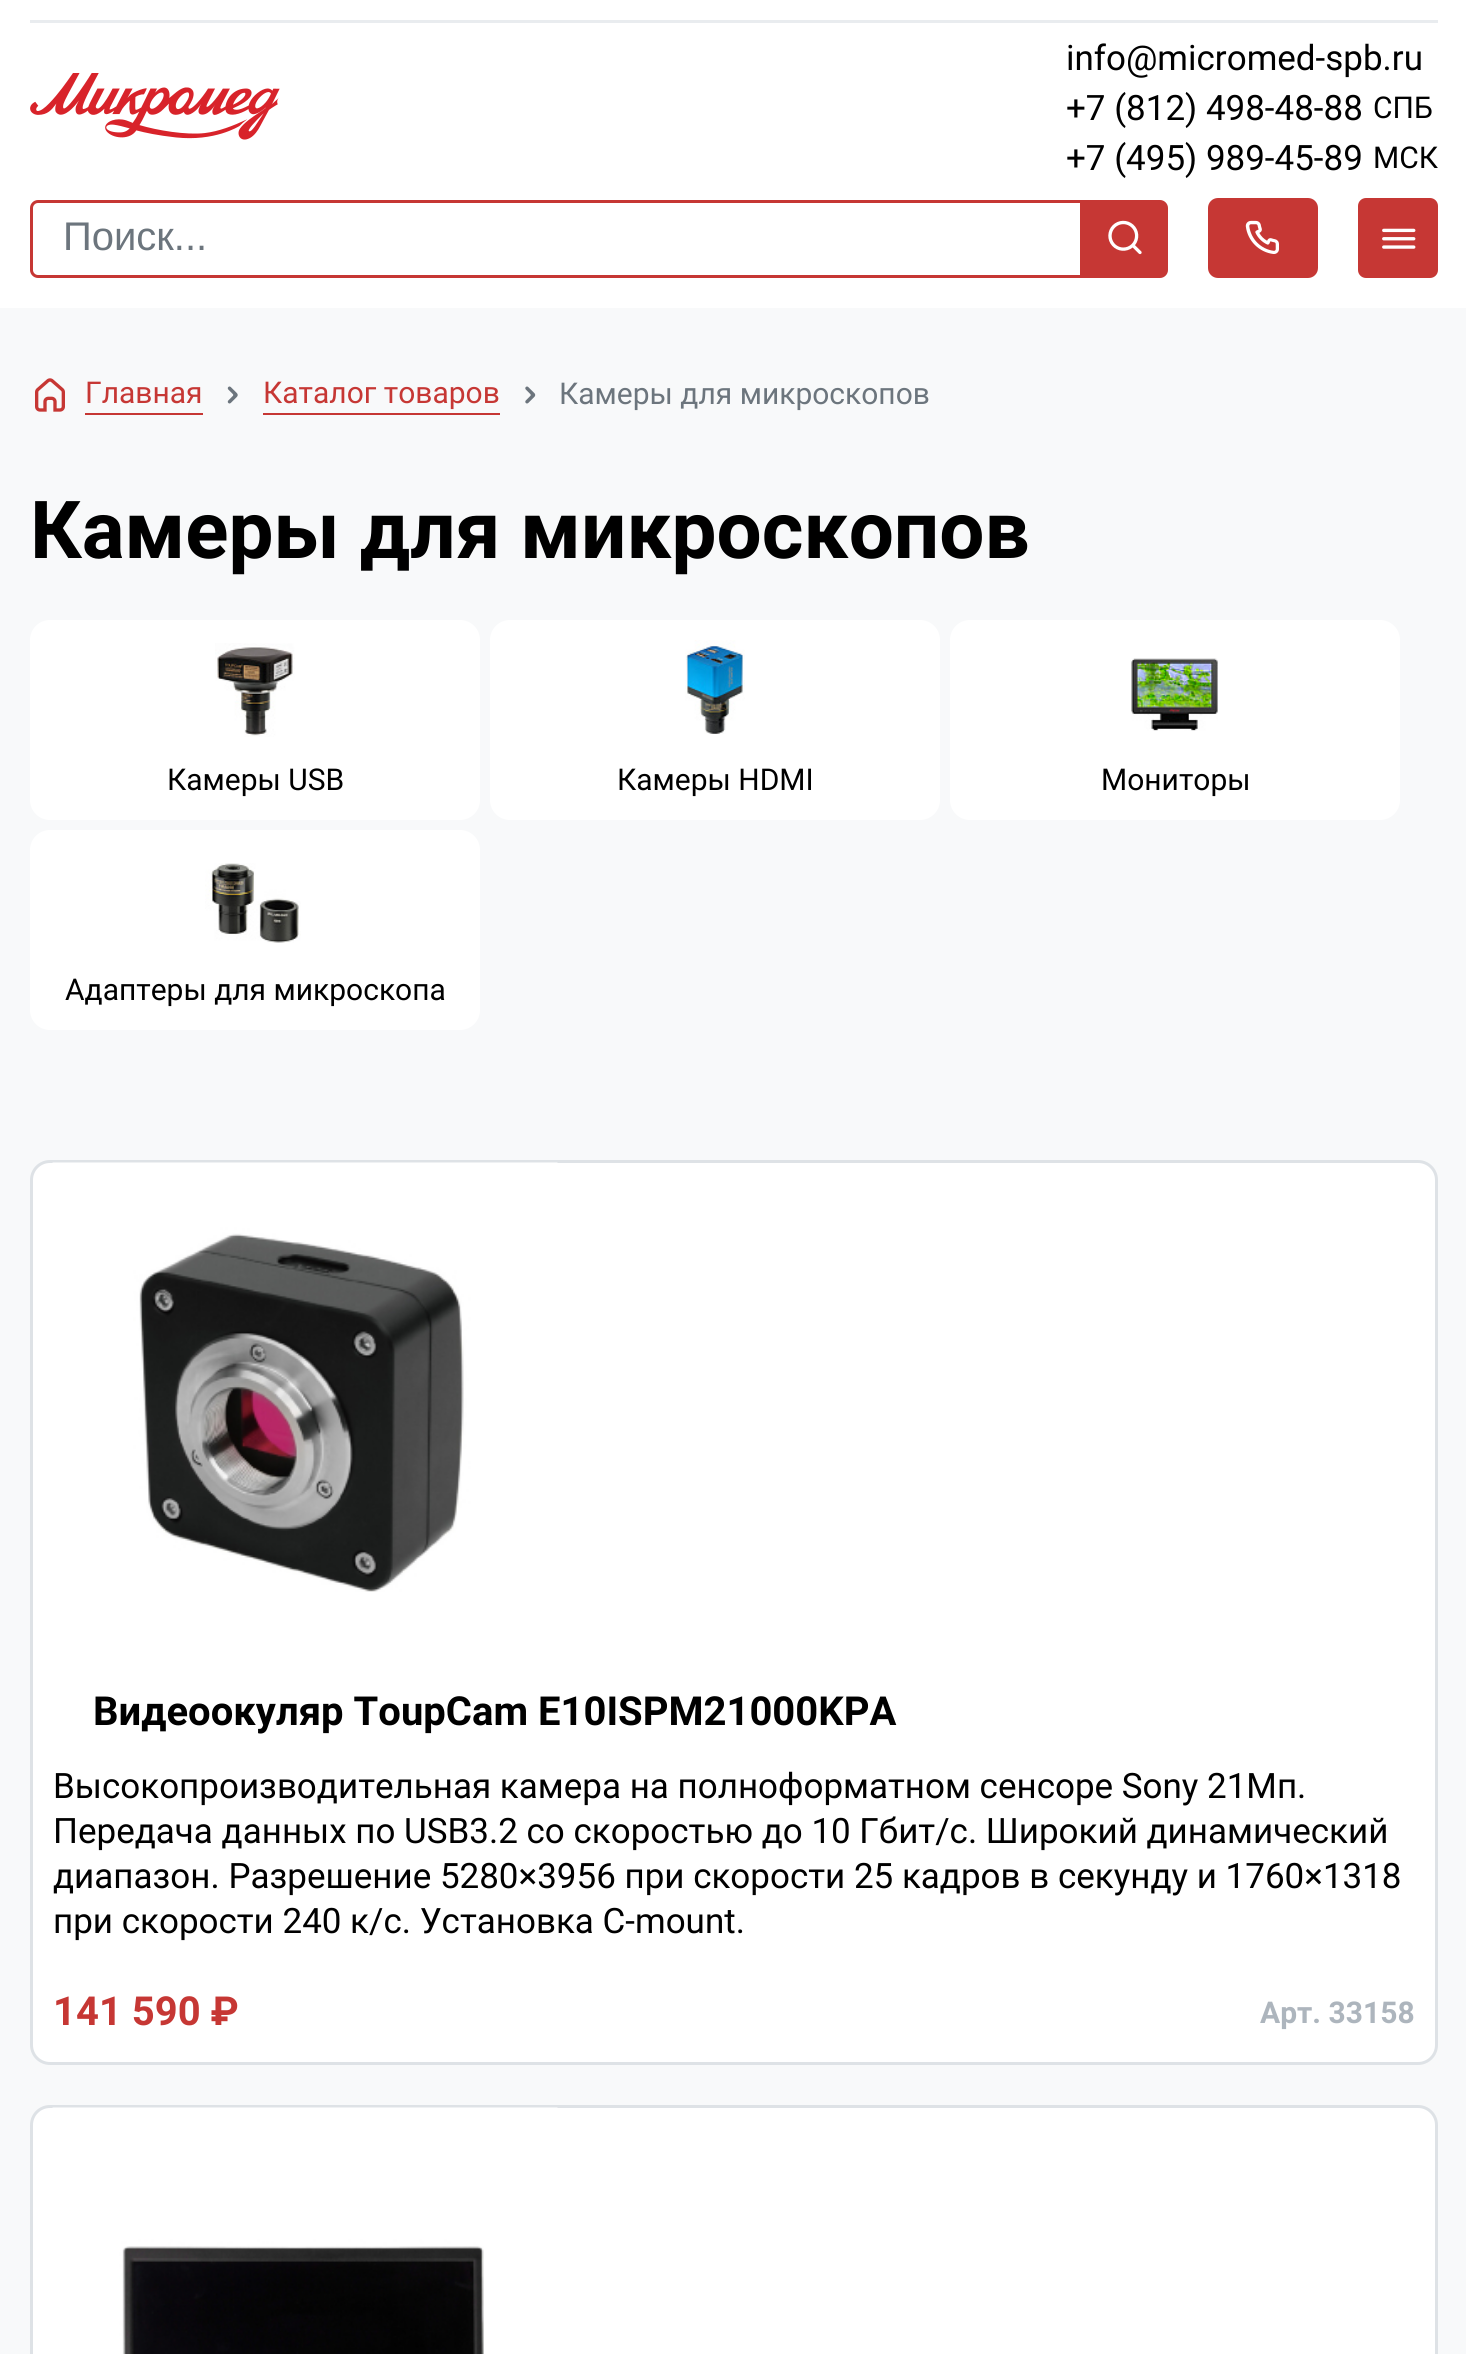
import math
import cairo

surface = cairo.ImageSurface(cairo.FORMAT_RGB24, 1466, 2354)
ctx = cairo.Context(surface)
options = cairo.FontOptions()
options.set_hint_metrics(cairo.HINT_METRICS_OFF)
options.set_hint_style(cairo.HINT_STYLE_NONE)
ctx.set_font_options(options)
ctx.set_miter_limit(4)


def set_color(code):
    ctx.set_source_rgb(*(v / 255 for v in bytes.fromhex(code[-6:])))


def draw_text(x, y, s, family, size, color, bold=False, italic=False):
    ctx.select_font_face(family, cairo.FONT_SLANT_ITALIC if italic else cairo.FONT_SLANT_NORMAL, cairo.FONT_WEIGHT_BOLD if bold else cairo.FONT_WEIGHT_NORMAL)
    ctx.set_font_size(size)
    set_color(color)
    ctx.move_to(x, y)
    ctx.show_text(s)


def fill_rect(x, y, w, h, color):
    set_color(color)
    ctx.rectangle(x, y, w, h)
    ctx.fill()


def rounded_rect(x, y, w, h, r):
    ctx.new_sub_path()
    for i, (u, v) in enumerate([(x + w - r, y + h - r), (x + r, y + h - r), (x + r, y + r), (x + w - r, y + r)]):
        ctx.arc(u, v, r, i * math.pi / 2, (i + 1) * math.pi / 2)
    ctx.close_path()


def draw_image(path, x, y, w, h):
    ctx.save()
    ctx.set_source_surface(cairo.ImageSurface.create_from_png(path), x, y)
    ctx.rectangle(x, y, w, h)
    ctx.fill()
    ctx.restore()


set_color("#f8f9fa")
ctx.paint()
fill_rect(0, 0, 1466, 308, "#ffffff")
fill_rect(30, 20, 1408, 3, "#e9ecef")
draw_image("assets/img1.png", 30, 73, 250, 67)
draw_text(1066, 70, "info@micromed-spb.ru", "Roboto", 35, "#000000")
draw_text(1066, 120, "+7 (812) 498-48-88", "Roboto", 35, "#000000")
draw_text(1373, 118, "СПБ", "Roboto", 30, "#000000")
draw_text(1066, 170, "+7 (495) 989-45-89", "Roboto", 35, "#000000")
draw_text(1373, 168, "МСК", "Roboto", 30, "#000000")
ctx.new_path()
ctx.move_to(38, 201.5)
ctx.line_to(1081.5, 201.5)
ctx.line_to(1081.5, 276.5)
ctx.line_to(38, 276.5)
ctx.curve_to(34.5, 276.5, 31.5, 273.5, 31.5, 270)
ctx.line_to(31.5, 208)
ctx.curve_to(31.5, 204.5, 34.5, 201.5, 38, 201.5)
ctx.close_path()
set_color("#c63734")
ctx.set_line_width(3)
ctx.stroke()
draw_text(63, 250, "Поиск...", "Liberation Sans", 40, "#6c757d")
set_color("#c63734")
ctx.new_path()
ctx.move_to(1084.5, 201.5)
ctx.line_to(1160, 201.5)
ctx.curve_to(1163.5, 201.5, 1166.5, 204.5, 1166.5, 208)
ctx.line_to(1166.5, 270)
ctx.curve_to(1166.5, 273.5, 1163.5, 276.5, 1160, 276.5)
ctx.line_to(1084.5, 276.5)
ctx.close_path()
ctx.fill_preserve()
ctx.stroke()
draw_image("assets/img2.png", 1108, 220, 34, 35)
rounded_rect(1209.5, 199.5, 107, 77, 8.5)
ctx.fill_preserve()
ctx.stroke()
draw_image("assets/img3.png", 1245, 220, 34, 34)
rounded_rect(1359.5, 199.5, 77, 77, 6.5)
ctx.fill_preserve()
ctx.stroke()
draw_image("assets/img4.png", 1382, 228, 34, 21)
draw_image("assets/img5.png", 35, 378, 30, 34)
fill_rect(85, 413, 118, 2, "#c63734")
draw_text(85, 403, "Главная", "Roboto", 30, "#c63734")
draw_image("assets/img6.png", 227, 386, 11, 18)
fill_rect(263, 413, 237, 2, "#c63734")
draw_text(263, 403, "Каталог товаров", "Roboto", 30, "#c63734")
draw_image("assets/img7.png", 525, 386, 11, 18)
draw_text(559, 404, "Камеры для микроскопов", "Roboto", 30, "#6c757d")
draw_text(30, 558, "Камеры для микроскопов", "Roboto", 80, "#000000", bold=True)
set_color("#ffffff")
rounded_rect(30, 620, 450, 200, 20)
ctx.fill()
draw_image("assets/img8.png", 215, 643, 80, 94)
draw_text(167, 790, "Камеры USB", "Roboto", 30, "#000000")
set_color("#ffffff")
rounded_rect(490, 620, 450, 200, 20)
ctx.fill()
draw_image("assets/img9.png", 685, 640, 60, 94)
draw_text(617, 790, "Камеры HDMI", "Roboto", 30, "#000000")
set_color("#ffffff")
rounded_rect(950, 620, 450, 200, 20)
ctx.fill()
draw_image("assets/img10.png", 1131, 658, 87, 73)
draw_text(1101, 790, "Мониторы", "Roboto", 30, "#000000")
set_color("#ffffff")
rounded_rect(30, 830, 450, 200, 20)
ctx.fill()
draw_image("assets/img11.png", 205, 863, 96, 80)
draw_text(65, 1000, "Адаптеры для микроскопа", "Roboto", 30, "#000000")
set_color("#ffffff")
rounded_rect(31.5, 1161.5, 1405, 902, 18.5)
ctx.fill_preserve()
set_color("#dee2e6")
ctx.stroke()
draw_image("assets/img12.png", 52, 1162, 506, 430)
draw_text(93, 1725, "Видеоокуляр ToupCam E10ISPM21000KPA", "Roboto", 40, "#000000", bold=True)
draw_text(53, 1798, "Высокопроизводительная камера на полноформатном сенсоре Sony 21Мп.", "Roboto", 35, "#000000")
draw_text(53, 1843, "Передача данных по USB3.2 со скоростью до 10 Гбит/с. Широкий динамический", "Roboto", 35, "#000000")
draw_text(53, 1888, "диапазон. Разрешение 5280×3956 при скорости 25 кадров в секунду и 1760×1318", "Roboto", 35, "#000000")
draw_text(53, 1933, "при скорости 240 к/с. Установка C-mount.", "Roboto", 35, "#000000")
draw_text(53, 2025, "141 590 ₽", "Roboto", 40, "#c63734", bold=True)
draw_text(1260, 2023, "Арт. 33158", "Roboto", 30, "#adb5bd", bold=True)
set_color("#ffffff")
rounded_rect(31.5, 2106.5, 1405, 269, 18.5)
ctx.fill_preserve()
set_color("#dee2e6")
ctx.stroke()
draw_image("assets/img13.png", 52, 2107, 506, 247)
surface.write_to_png("output.png")
